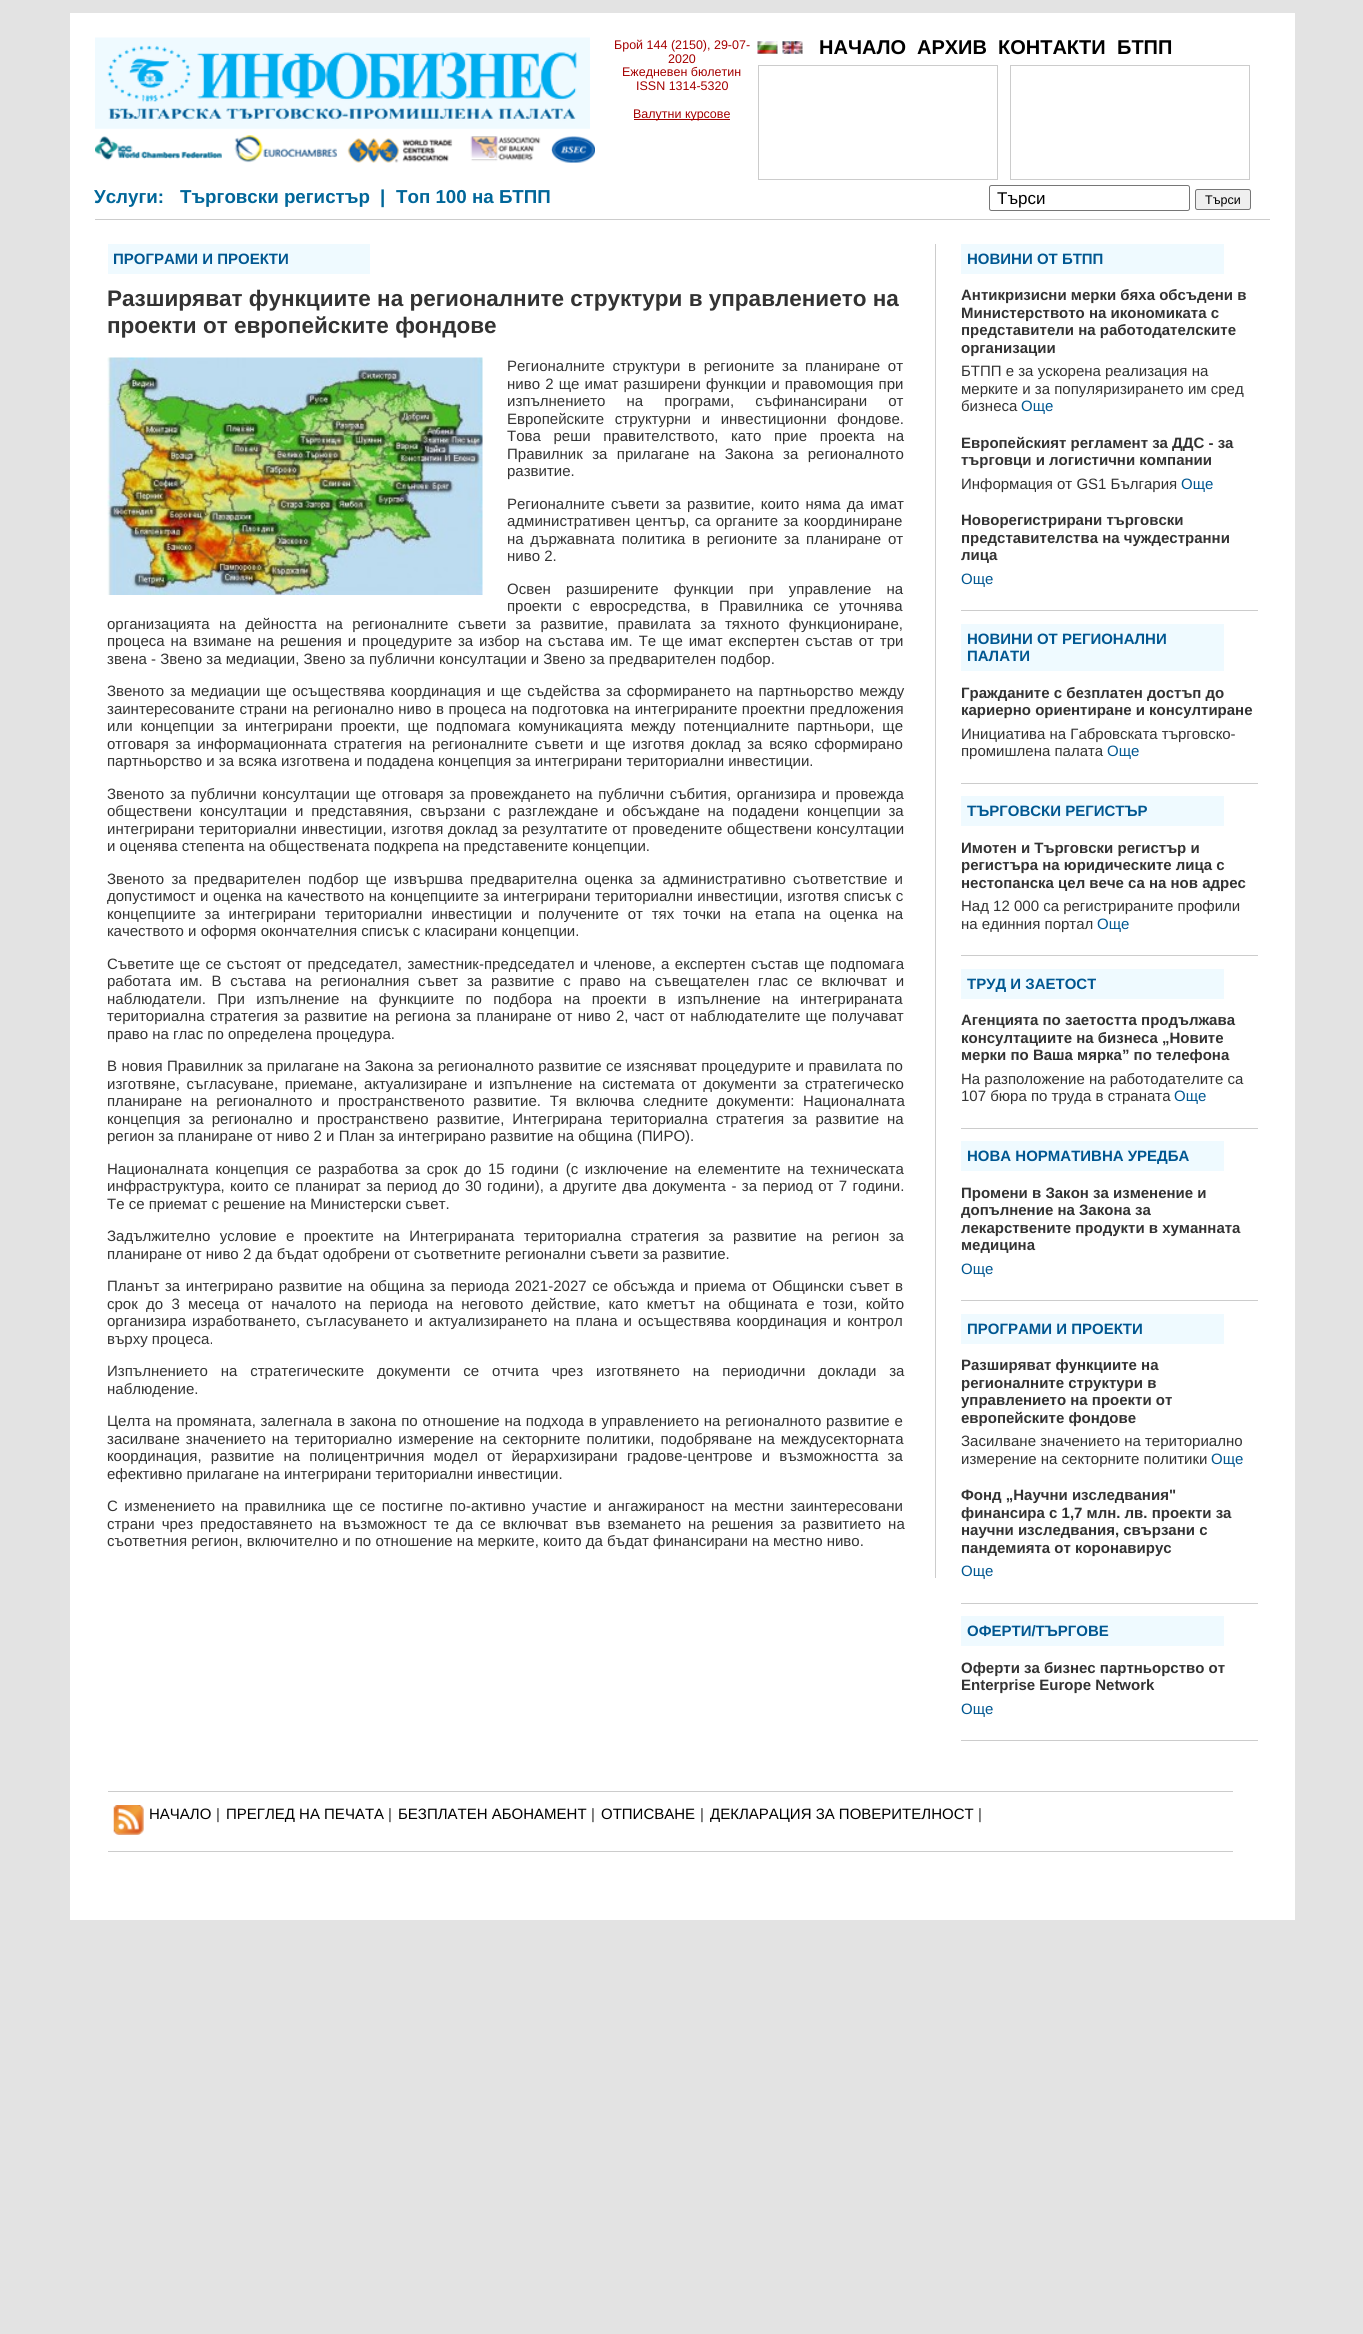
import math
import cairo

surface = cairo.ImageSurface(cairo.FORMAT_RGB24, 1363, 2334)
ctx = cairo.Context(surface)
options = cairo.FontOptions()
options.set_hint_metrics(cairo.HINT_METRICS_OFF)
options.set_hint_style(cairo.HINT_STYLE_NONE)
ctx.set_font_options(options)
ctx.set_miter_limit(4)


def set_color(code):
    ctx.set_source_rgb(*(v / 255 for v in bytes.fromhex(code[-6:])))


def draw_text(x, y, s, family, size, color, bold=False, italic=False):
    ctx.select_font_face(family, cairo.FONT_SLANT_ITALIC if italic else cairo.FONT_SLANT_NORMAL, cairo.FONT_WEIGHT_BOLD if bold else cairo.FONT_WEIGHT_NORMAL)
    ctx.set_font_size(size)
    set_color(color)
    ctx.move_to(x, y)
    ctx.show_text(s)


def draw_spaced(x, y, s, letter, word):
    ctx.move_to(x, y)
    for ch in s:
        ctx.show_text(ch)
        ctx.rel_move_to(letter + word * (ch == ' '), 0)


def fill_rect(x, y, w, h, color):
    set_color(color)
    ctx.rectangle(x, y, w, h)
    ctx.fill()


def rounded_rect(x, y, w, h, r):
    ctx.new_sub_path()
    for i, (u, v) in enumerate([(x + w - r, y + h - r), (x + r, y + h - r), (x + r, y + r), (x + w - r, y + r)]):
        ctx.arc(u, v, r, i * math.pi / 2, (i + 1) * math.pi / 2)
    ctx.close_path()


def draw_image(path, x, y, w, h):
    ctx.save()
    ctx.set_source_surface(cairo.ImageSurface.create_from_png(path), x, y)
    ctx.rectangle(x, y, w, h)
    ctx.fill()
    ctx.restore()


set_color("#e3e3e3")
ctx.paint()
fill_rect(70, 13, 1225, 1907, "#ffffff")
fill_rect(95, 219, 1175, 1, "#cccccc")
draw_image("assets/img1.png", 95, 37, 495, 92)
draw_image("assets/img2.png", 95, 135, 500, 28)
draw_text(614, 49, "Брой 144 (2150), 29-07-", "Liberation Sans", 12.5, "#a40000")
draw_text(668, 63, "2020", "Liberation Sans", 12.5, "#a40000")
draw_text(622, 76, "Ежедневен бюлетин", "Liberation Sans", 12.5, "#a40000")
draw_text(636, 90, "ISSN 1314-5320", "Liberation Sans", 12.5, "#a40000")
fill_rect(634, 119, 96, 1, "#a40000")
draw_text(633, 118, "Валутни курсове", "Liberation Sans", 12.5, "#a40000")
draw_image("assets/img3.png", 757, 41, 21, 13)
draw_image("assets/img4.png", 782, 41, 21, 13)
draw_text(819, 54, "НАЧАЛО", "Liberation Sans", 20, "#000000", bold=True)
draw_text(917, 54, "АРХИВ", "Liberation Sans", 20, "#000000", bold=True)
draw_text(998, 54, "КОНТАКТИ", "Liberation Sans", 20, "#000000", bold=True)
draw_text(1117, 54, "БТПП", "Liberation Sans", 20, "#000000", bold=True)
ctx.rectangle(758.5, 65.5, 239, 114)
set_color("#cccccc")
ctx.set_line_width(1)
ctx.stroke()
ctx.rectangle(1010.5, 65.5, 239, 114)
ctx.stroke()
draw_text(94, 203, "Услуги:", "Liberation Sans", 18.75, "#006699", bold=True)
draw_text(180, 203, "Търговски регистър", "Liberation Sans", 18.75, "#006699", bold=True)
draw_text(380, 203, "|", "Liberation Sans", 18.75, "#006699", bold=True)
draw_text(396, 203, "Топ 100 на БТПП", "Liberation Sans", 18.75, "#006699", bold=True)
rounded_rect(989.5, 185.5, 200, 25, 2)
set_color("#767676")
ctx.stroke()
draw_text(997, 204, "Търси", "Liberation Sans", 17, "#000000")
set_color("#efefef")
rounded_rect(1195.5, 189.5, 55, 20, 2)
ctx.fill_preserve()
set_color("#767676")
ctx.stroke()
draw_text(1205, 204, "Търси", "Liberation Sans", 12.5, "#000000")
fill_rect(935, 244, 1, 1334, "#cccccc")
fill_rect(108, 244, 262, 30, "#effaff")
draw_text(113, 264, "ПРОГРАМИ И ПРОЕКТИ", "Liberation Sans", 15, "#005791", bold=True)
draw_text(107, 306, "Разширяват функциите на регионалните структури в управлението на", "Liberation Sans", 22.5, "#333333", bold=True)
draw_text(107, 333, "проекти от европейските фондове", "Liberation Sans", 22.5, "#333333", bold=True)
draw_image("assets/img5.png", 107, 357, 376, 238)
ctx.select_font_face("Liberation Sans")
ctx.set_font_size(15)
draw_spaced(507, 371, "Регионалните структури в регионите за планиране от", 0, 3.5)
draw_spaced(507, 389, "ниво 2 ще имат разширени функции и правомощия при", 0, 1)
draw_spaced(507, 406, "изпълнението на програми, съфинансирани от", 0, 17)
draw_spaced(507, 424, "Европейските структурни и инвестиционни фондове.", 0, 6.5)
draw_spaced(507, 441, "Това реши правителството, като прие проекта на", 0, 8.5)
draw_spaced(507, 459, "Правилник за прилагане на Закона за регионалното", 0, 5.25)
draw_text(507, 476, "развитие.", "Liberation Sans", 15, "#333333")
draw_spaced(507, 509, "Регионалните съвети за развитие, които няма да имат", 0, 2)
draw_spaced(507, 526, "административен център, са органите за координиране", 0, 1)
draw_spaced(507, 544, "на държавната политика в регионите за планиране от", 0, 2.5)
draw_text(507, 561, "ниво 2.", "Liberation Sans", 15, "#333333")
draw_spaced(507, 594, "Освен разширените функции при управление на", 0, 11)
draw_spaced(507, 611, "проекти с евросредства, в Правилника се уточнява", 0, 6)
draw_spaced(107, 629, "организацията на дейността на регионалните съвети за развитие, правилата за тяхното функциониране,", 0, 5.25)
draw_spaced(107, 646, "процеса на взимане на решения и процедурите за избор на състава им. Те ще имат експертен състав от три", 0, 1.75)
draw_text(107, 664, "звена - Звено за медиации, Звено за публични консултации и Звено за предварителен подбор.", "Liberation Sans", 15, "#333333")
draw_spaced(107, 696, "Звеното за медиации ще осъществява координация и ще съдейства за сформирането на партньорство между", 0, 1.5)
draw_spaced(107, 714, "заинтересованите страни на регионално ниво в процеса на подготовка на интегрираните проектни предложения", 0, 0.4)
draw_spaced(107, 731, "или концепции за интегрирани проекти, ще подпомага комуникацията между потенциалните партньори, ще", 0, 3.75)
draw_spaced(107, 749, "отговаря за информационната стратегия на регионалните съвети и ще изготвя доклад за всяко сформирано", 0, 2.5)
draw_text(107, 766, "партньорство и за всяка изготвена и подадена концепция за интегрирани териториални инвестиции.", "Liberation Sans", 15, "#333333")
draw_spaced(107, 799, "Звеното за публични консултации ще отговаря за провеждането на публични събития, организира и провежда", 0, 1.5)
draw_spaced(107, 816, "обществени консултации и представяния, свързани с разглеждане и обсъждане на подадени концепции за", 0, 3.6)
draw_spaced(107, 834, "интегрирани териториални инвестиции, изготвя доклад за резултатите от проведените обществени консултации", 0, 0.5)
draw_text(107, 851, "и оценява степента на обществената подкрепа на представените концепции.", "Liberation Sans", 15, "#333333")
draw_spaced(107, 884, "Звеното за предварителен подбор ще извършва предварителна оценка за административно съответствие и", 0, 3)
draw_spaced(107, 901, "допустимост и оценка на качеството на концепциите за интегрирани териториални инвестиции, изготвя списък с", 0, 0.4)
draw_spaced(107, 919, "концепциите за интегрирани териториални инвестиции и получените от тях точки на етапа на оценка на", 0, 4.6)
draw_text(107, 936, "качеството и оформя окончателния списък с класирани концепции.", "Liberation Sans", 15, "#333333")
draw_spaced(107, 969, "Съветите ще се състоят от председател, заместник-председател и членове, а експертен състав ще подпомага", 0, 1.25)
draw_spaced(107, 986, "работата им. В състава на регионалния съвет за развитие с право на съвещателен глас се включват и", 0, 4.6)
draw_spaced(107, 1004, "наблюдатели. При изпълнение на функциите по подбора на проекти в изпълнение на интегрираната", 0, 7.25)
draw_spaced(107, 1021, "териториална стратегия за развитие на региона за планиране от ниво 2, част от наблюдателите ще получават", 0, 1.2)
draw_text(107, 1039, "право на глас по определена процедура.", "Liberation Sans", 15, "#333333")
draw_spaced(107, 1071, "В новия Правилник за прилагане на Закона за регионалното развитие се изясняват процедурите и правилата по", 0, 0.25)
draw_spaced(107, 1089, "изготвяне, съгласуване, приемане, актуализиране и изпълнение на системата от документи за стратегическо", 0, 2.5)
draw_spaced(107, 1106, "планиране на регионалното и пространственото развитие. Тя включва следните документи: Националната", 0, 4.5)
draw_spaced(107, 1124, "концепция за регионално и пространствено развитие, Интегрирана териториална стратегия за развитие на", 0, 3.9)
draw_text(107, 1141, "регион за планиране от ниво 2 и План за интегрирано развитие на община (ПИРО).", "Liberation Sans", 15, "#333333")
draw_spaced(107, 1174, "Националната концепция се разработва за срок до 15 години (с изключение на елементите на техническата", 0, 2.5)
draw_spaced(107, 1191, "инфраструктура, които се планират за период до 30 години), а другите два документа - за период от 7 години.", 0, 1.25)
draw_text(107, 1209, "Те се приемат с решение на Министерски съвет.", "Liberation Sans", 15, "#333333")
draw_spaced(107, 1241, "Задължително условие е проектите на Интегрираната териториална стратегия за развитие на регион за", 0, 5.25)
draw_text(107, 1259, "планиране от ниво 2 да бъдат одобрени от съответните регионални съвети за развитие.", "Liberation Sans", 15, "#333333")
draw_spaced(107, 1291, "Планът за интегрирано развитие на община за периода 2021-2027 се обсъжда и приема от Общински съвет в", 0, 1.4)
draw_spaced(107, 1309, "срок до 3 месеца от началото на периода на неговото действие, като кметът на общината е този, който", 0, 4.1)
draw_spaced(107, 1326, "организира изработването, съгласуването и актуализирането на плана и осъществява координация и контрол", 0, 1.75)
draw_text(107, 1344, "върху процеса.", "Liberation Sans", 15, "#333333")
draw_spaced(107, 1376, "Изпълнението на стратегическите документи се отчита чрез изготвянето на периодични доклади за", 0, 8.75)
draw_text(107, 1394, "наблюдение.", "Liberation Sans", 15, "#333333")
draw_spaced(107, 1426, "Целта на промяната, залегнала в закона по отношение на подхода в управлението на регионалното развитие е", 0, 0.6)
draw_spaced(107, 1444, "засилване значението на териториално измерение на секторните политики, подобряване на междусекторната", 0, 1.9)
draw_spaced(107, 1461, "координация, развитие на полицентричния модел от йерархизирани градове-центрове и възможността за", 0, 5)
draw_text(107, 1479, "ефективно прилагане на интегрирани териториални инвестиции.", "Liberation Sans", 15, "#333333")
draw_spaced(107, 1511, "С изменението на правилника ще се постигне по-активно участие и ангажираност на местни заинтересовани", 0, 2.25)
draw_spaced(107, 1529, "страни чрез предоставянето на възможност те да се включват във вземането на решения за развитието на", 0, 2.75)
draw_text(107, 1546, "съответния регион, включително и по отношение на мерките, които да бъдат финансирани на местно ниво.", "Liberation Sans", 15, "#333333")
fill_rect(961, 610, 297, 1, "#cccccc")
fill_rect(961, 244, 263, 30, "#effaff")
draw_text(967, 264, "НОВИНИ ОТ БТПП", "Liberation Sans", 15, "#005791", bold=True)
draw_text(961, 300, "Антикризисни мерки бяха обсъдени в", "Liberation Sans", 15, "#333333", bold=True)
draw_text(961, 318, "Министерството на икономиката с", "Liberation Sans", 15, "#333333", bold=True)
draw_text(961, 335, "представители на работодателските", "Liberation Sans", 15, "#333333", bold=True)
draw_text(961, 353, "организации", "Liberation Sans", 15, "#333333", bold=True)
draw_text(961, 376, "БТПП е за ускорена реализация на", "Liberation Sans", 15, "#333333")
draw_text(961, 394, "мерките и за популяризирането им сред", "Liberation Sans", 15, "#333333")
draw_text(961, 411, "бизнеса", "Liberation Sans", 15, "#333333")
draw_text(1021, 411, "Още", "Liberation Sans", 15, "#005791")
draw_text(961, 448, "Европейският регламент за ДДС - за", "Liberation Sans", 15, "#333333", bold=True)
draw_text(961, 465, "търговци и логистични компании", "Liberation Sans", 15, "#333333", bold=True)
draw_text(961, 489, "Информация от GS1 България", "Liberation Sans", 15, "#333333")
draw_text(1181, 489, "Още", "Liberation Sans", 15, "#005791")
draw_text(961, 525, "Новорегистрирани търговски", "Liberation Sans", 15, "#333333", bold=True)
draw_text(961, 543, "представителства на чуждестранни", "Liberation Sans", 15, "#333333", bold=True)
draw_text(961, 560, "лица", "Liberation Sans", 15, "#333333", bold=True)
draw_text(961, 584, "Още", "Liberation Sans", 15, "#005791")
fill_rect(961, 783, 297, 1, "#cccccc")
fill_rect(961, 624, 263, 47, "#effaff")
draw_text(967, 644, "НОВИНИ ОТ РЕГИОНАЛНИ", "Liberation Sans", 15, "#005791", bold=True)
draw_text(967, 661, "ПАЛАТИ", "Liberation Sans", 15, "#005791", bold=True)
draw_text(961, 698, "Гражданите с безплатен достъп до", "Liberation Sans", 15, "#333333", bold=True)
draw_text(961, 715, "кариерно ориентиране и консултиране", "Liberation Sans", 15, "#333333", bold=True)
draw_text(961, 739, "Инициатива на Габровската търговско-", "Liberation Sans", 15, "#333333")
draw_text(961, 756, "промишлена палата", "Liberation Sans", 15, "#333333")
draw_text(1107, 756, "Още", "Liberation Sans", 15, "#005791")
fill_rect(961, 955, 297, 1, "#cccccc")
fill_rect(961, 796, 263, 30, "#effaff")
draw_text(967, 816, "ТЪРГОВСКИ РЕГИСТЪР", "Liberation Sans", 15, "#005791", bold=True)
draw_text(961, 853, "Имотен и Търговски регистър и", "Liberation Sans", 15, "#333333", bold=True)
draw_text(961, 870, "регистъра на юридическите лица с", "Liberation Sans", 15, "#333333", bold=True)
draw_text(961, 888, "нестопанска цел вече са на нов адрес", "Liberation Sans", 15, "#333333", bold=True)
draw_text(961, 911, "Над 12 000 са регистрираните профили", "Liberation Sans", 15, "#333333")
draw_text(961, 929, "на единния портал", "Liberation Sans", 15, "#333333")
draw_text(1097, 929, "Още", "Liberation Sans", 15, "#005791")
fill_rect(961, 1128, 297, 1, "#cccccc")
fill_rect(961, 969, 263, 30, "#effaff")
draw_text(967, 989, "ТРУД И ЗАЕТОСТ", "Liberation Sans", 15, "#005791", bold=True)
draw_text(961, 1025, "Агенцията по заетостта продължава", "Liberation Sans", 15, "#333333", bold=True)
draw_text(961, 1043, "консултациите на бизнеса „Новите", "Liberation Sans", 15, "#333333", bold=True)
draw_text(961, 1060, "мерки по Ваша мярка” по телефона", "Liberation Sans", 15, "#333333", bold=True)
draw_text(961, 1084, "На разположение на работодателите са", "Liberation Sans", 15, "#333333")
draw_text(961, 1101, "107 бюра по труда в страната", "Liberation Sans", 15, "#333333")
draw_text(1174, 1101, "Още", "Liberation Sans", 15, "#005791")
fill_rect(961, 1300, 297, 1, "#cccccc")
fill_rect(961, 1141, 263, 30, "#effaff")
draw_text(967, 1161, "НОВА НОРМАТИВНА УРЕДБА", "Liberation Sans", 15, "#005791", bold=True)
draw_text(961, 1198, "Промени в Закон за изменение и", "Liberation Sans", 15, "#333333", bold=True)
draw_text(961, 1215, "допълнение на Закона за", "Liberation Sans", 15, "#333333", bold=True)
draw_text(961, 1233, "лекарствените продукти в хуманната", "Liberation Sans", 15, "#333333", bold=True)
draw_text(961, 1250, "медицина", "Liberation Sans", 15, "#333333", bold=True)
draw_text(961, 1274, "Още", "Liberation Sans", 15, "#005791")
fill_rect(961, 1603, 297, 1, "#cccccc")
fill_rect(961, 1314, 263, 30, "#effaff")
draw_text(967, 1334, "ПРОГРАМИ И ПРОЕКТИ", "Liberation Sans", 15, "#005791", bold=True)
draw_text(961, 1370, "Разширяват функциите на", "Liberation Sans", 15, "#333333", bold=True)
draw_text(961, 1388, "регионалните структури в", "Liberation Sans", 15, "#333333", bold=True)
draw_text(961, 1405, "управлението на проекти от", "Liberation Sans", 15, "#333333", bold=True)
draw_text(961, 1423, "европейските фондове", "Liberation Sans", 15, "#333333", bold=True)
draw_text(961, 1446, "Засилване значението на териториално", "Liberation Sans", 15, "#333333")
draw_text(961, 1464, "измерение на секторните политики", "Liberation Sans", 15, "#333333")
draw_text(1211, 1464, "Още", "Liberation Sans", 15, "#005791")
draw_text(961, 1500, "Фонд „Научни изследвания\"", "Liberation Sans", 15, "#333333", bold=True)
draw_text(961, 1518, "финансира с 1,7 млн. лв. проекти за", "Liberation Sans", 15, "#333333", bold=True)
draw_text(961, 1535, "научни изследвания, свързани с", "Liberation Sans", 15, "#333333", bold=True)
draw_text(961, 1553, "пандемията от коронавирус", "Liberation Sans", 15, "#333333", bold=True)
draw_text(961, 1576, "Още", "Liberation Sans", 15, "#005791")
fill_rect(961, 1740, 297, 1, "#cccccc")
fill_rect(961, 1616, 263, 30, "#effaff")
draw_text(967, 1636, "ОФЕРТИ/ТЪРГОВЕ", "Liberation Sans", 15, "#005791", bold=True)
draw_text(961, 1673, "Оферти за бизнес партньорство от", "Liberation Sans", 15, "#333333", bold=True)
draw_text(961, 1690, "Enterprise Europe Network", "Liberation Sans", 15, "#333333", bold=True)
draw_text(961, 1714, "Още", "Liberation Sans", 15, "#005791")
fill_rect(108, 1791, 1125, 1, "#cccccc")
fill_rect(108, 1851, 1125, 1, "#cccccc")
draw_image("assets/img6.png", 113, 1805, 31, 30)
draw_text(149, 1819, "НАЧАЛО", "Liberation Sans", 15, "#000000")
draw_text(216, 1819, "|", "Liberation Sans", 15, "#333333")
draw_text(226, 1819, "ПРЕГЛЕД НА ПЕЧАТА", "Liberation Sans", 15, "#000000")
draw_text(388, 1819, "|", "Liberation Sans", 15, "#333333")
draw_text(398, 1819, "БЕЗПЛАТЕН AБОНАМЕНТ", "Liberation Sans", 15, "#000000")
draw_text(591, 1819, "|", "Liberation Sans", 15, "#333333")
draw_text(601, 1819, "ОТПИСВАНЕ", "Liberation Sans", 15, "#000000")
draw_text(700, 1819, "|", "Liberation Sans", 15, "#333333")
draw_text(710, 1819, "ДЕКЛАРАЦИЯ ЗА ПОВЕРИТЕЛНОСT", "Liberation Sans", 15, "#000000")
draw_text(978, 1819, "|", "Liberation Sans", 15, "#333333")
surface.write_to_png("output.png")
